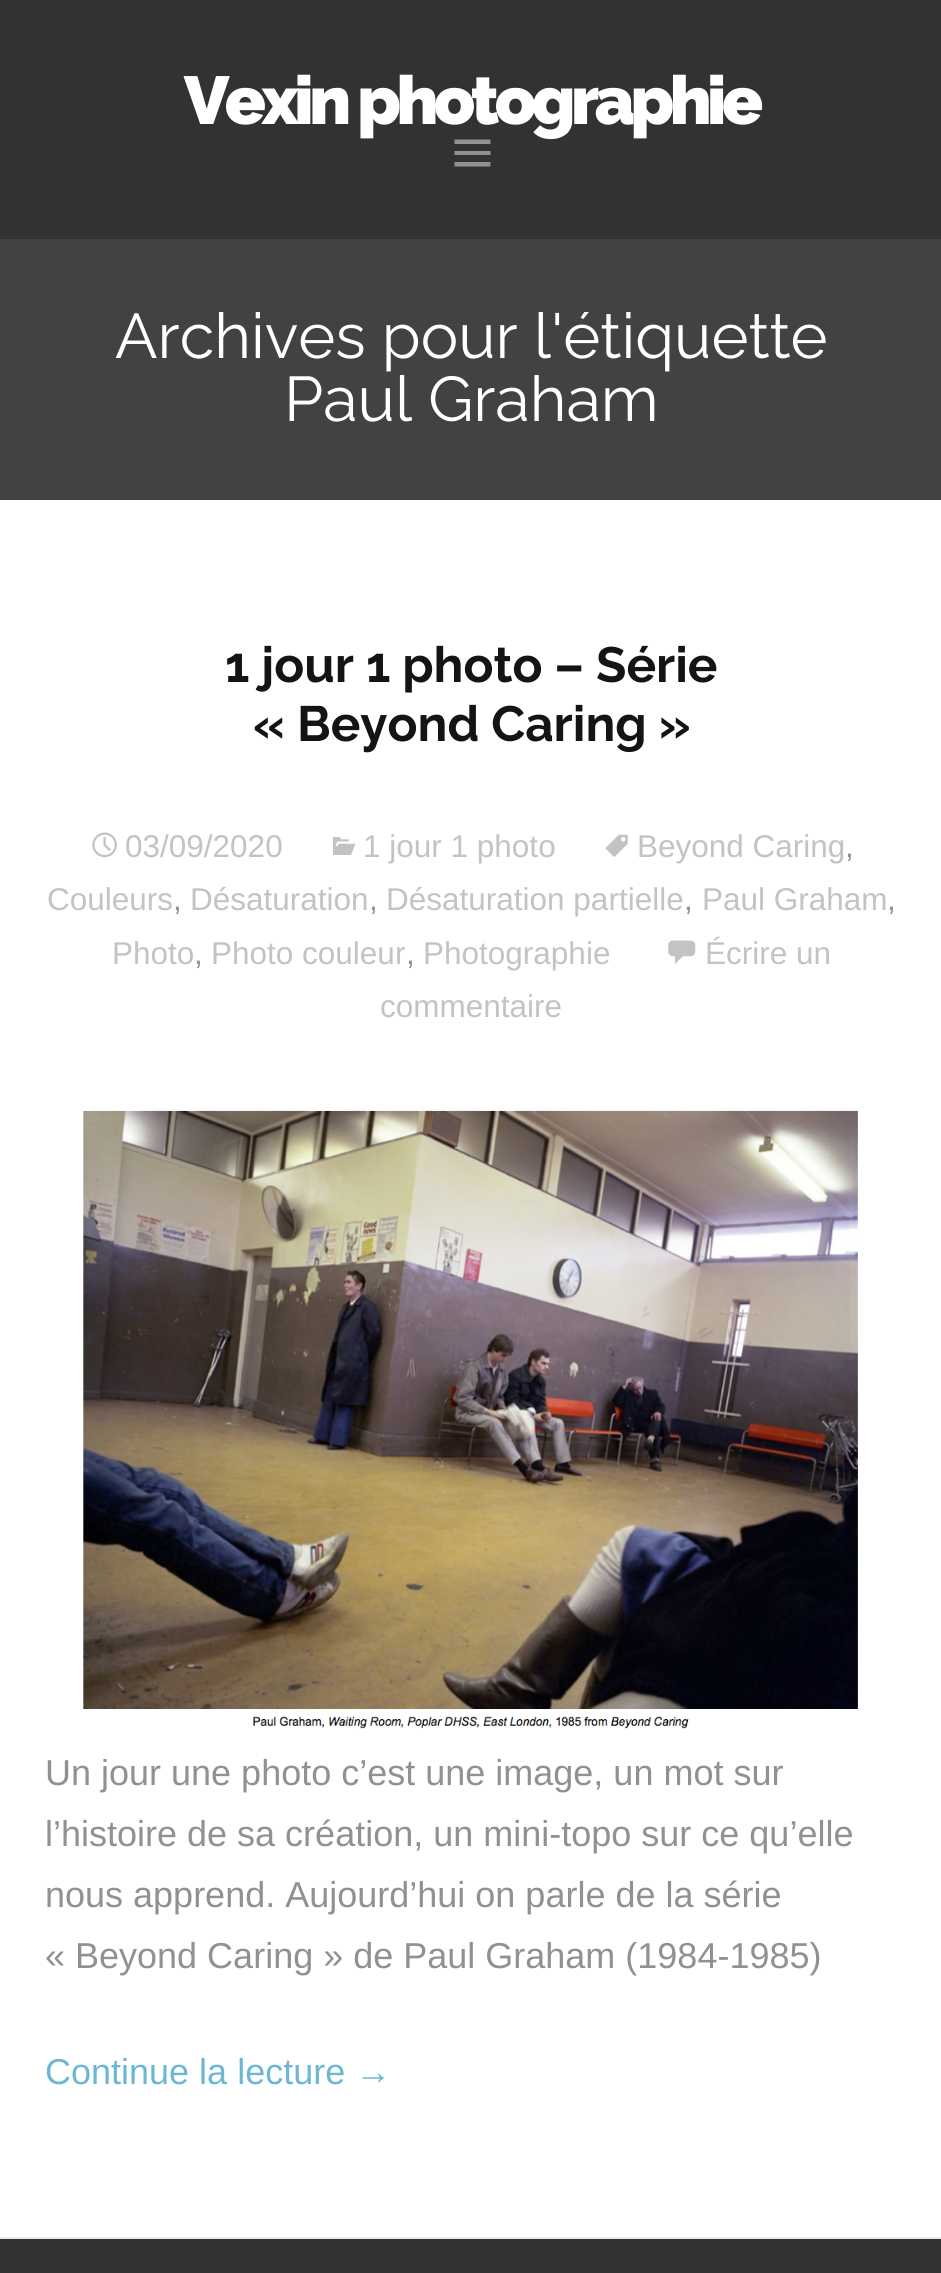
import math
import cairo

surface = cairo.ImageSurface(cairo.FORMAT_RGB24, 941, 2273)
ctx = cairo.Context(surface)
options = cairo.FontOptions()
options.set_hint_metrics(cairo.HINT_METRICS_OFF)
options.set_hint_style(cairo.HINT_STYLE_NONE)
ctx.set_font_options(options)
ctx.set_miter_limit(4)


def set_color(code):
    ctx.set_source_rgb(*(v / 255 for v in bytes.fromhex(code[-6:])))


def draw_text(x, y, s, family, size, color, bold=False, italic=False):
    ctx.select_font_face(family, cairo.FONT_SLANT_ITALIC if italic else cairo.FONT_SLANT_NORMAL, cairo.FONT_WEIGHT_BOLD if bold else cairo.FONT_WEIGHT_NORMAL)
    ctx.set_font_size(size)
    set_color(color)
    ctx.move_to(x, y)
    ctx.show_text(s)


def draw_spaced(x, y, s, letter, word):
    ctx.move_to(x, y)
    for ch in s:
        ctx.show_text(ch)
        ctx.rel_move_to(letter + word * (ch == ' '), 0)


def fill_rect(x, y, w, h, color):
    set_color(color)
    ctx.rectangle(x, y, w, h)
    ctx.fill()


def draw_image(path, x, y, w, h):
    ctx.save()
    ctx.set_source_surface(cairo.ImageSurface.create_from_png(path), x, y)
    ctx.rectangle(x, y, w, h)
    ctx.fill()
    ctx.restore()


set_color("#323232")
ctx.paint()
ctx.select_font_face("Raleway Black")
ctx.set_font_size(67.5)
set_color("#ffffff")
draw_spaced(184, 124, "Vexin photographie", -4.5, 0)
set_color("#919191")
ctx.new_path()
ctx.move_to(454.5, 166.5)
ctx.line_to(454.5, 162)
ctx.line_to(490.5, 162)
ctx.line_to(490.5, 166.5)
ctx.close_path()
ctx.move_to(454.5, 155)
ctx.line_to(454.5, 151)
ctx.line_to(490.5, 151)
ctx.line_to(490.5, 155)
ctx.close_path()
ctx.move_to(454.5, 144)
ctx.line_to(454.5, 139.5)
ctx.line_to(490.5, 139.5)
ctx.line_to(490.5, 144)
ctx.close_path()
ctx.fill()
fill_rect(0, 239, 941, 261, "#424242")
draw_text(115, 358, "Archives pour l'étiquette", "Raleway", 63, "#ffffff")
draw_text(284, 421, "Paul Graham", "Raleway", 63, "#ffffff")
fill_rect(0, 500, 941, 1737, "#ffffff")
fill_rect(0, 2237, 941, 2, "#ebebeb")
draw_text(225, 682, "1 jour 1 photo – Série", "Raleway", 49.5, "#141414", bold=True)
draw_text(253, 741, "« Beyond Caring »", "Raleway", 49.5, "#141414", bold=True)
draw_image("assets/img1.png", 605, 834, 23, 23)
draw_text(637, 857, "Beyond Caring", "Liberation Sans", 31.5, "#c3c3c3")
draw_text(845, 857, ",", "Liberation Sans", 31.5, "#919191")
draw_text(47, 910, "Couleurs", "Liberation Sans", 31.5, "#c3c3c3")
draw_text(173, 910, ",", "Liberation Sans", 31.5, "#919191")
draw_text(190, 910, "Désaturation", "Liberation Sans", 31.5, "#c3c3c3")
draw_text(369, 910, ",", "Liberation Sans", 31.5, "#919191")
draw_text(386, 910, "Désaturation partielle", "Liberation Sans", 31.5, "#c3c3c3")
draw_text(684, 910, ",", "Liberation Sans", 31.5, "#919191")
draw_text(702, 910, "Paul Graham", "Liberation Sans", 31.5, "#c3c3c3")
draw_text(887, 910, ",", "Liberation Sans", 31.5, "#919191")
draw_text(112, 964, "Photo", "Liberation Sans", 31.5, "#c3c3c3")
draw_text(194, 964, ",", "Liberation Sans", 31.5, "#919191")
draw_text(211, 964, "Photo couleur", "Liberation Sans", 31.5, "#c3c3c3")
draw_text(406, 964, ",", "Liberation Sans", 31.5, "#919191")
draw_text(423, 964, "Photographie", "Liberation Sans", 31.5, "#c3c3c3")
draw_image("assets/img2.png", 92, 832, 25, 26)
draw_text(125, 857, "03/09/2020", "Liberation Sans", 31.5, "#c3c3c3")
draw_image("assets/img3.png", 333, 837, 23, 18)
draw_text(363, 857, "1 jour 1 photo", "Liberation Sans", 31.5, "#c3c3c3")
draw_image("assets/img4.png", 668, 940, 28, 24)
draw_text(705, 964, "Écrire un", "Liberation Sans", 31.5, "#c3c3c3")
draw_text(380, 1017, "commentaire", "Liberation Sans", 31.5, "#c3c3c3")
draw_image("assets/img5.png", 83, 1110, 775, 619)
draw_text(45, 1785, "Un jour une photo c’est une image, un mot sur", "Liberation Sans", 36, "#919191")
draw_text(45, 1846, "l’histoire de sa création, un mini-topo sur ce qu’elle", "Liberation Sans", 36, "#919191")
draw_text(45, 1907, "nous apprend. Aujourd’hui on parle de la série", "Liberation Sans", 36, "#919191")
draw_text(45, 1968, "« Beyond Caring » de Paul Graham (1984-1985)", "Liberation Sans", 36, "#919191")
draw_text(45, 2084, "Continue la lecture →", "Liberation Sans", 36, "#6cb7d3")
surface.write_to_png("output.png")
